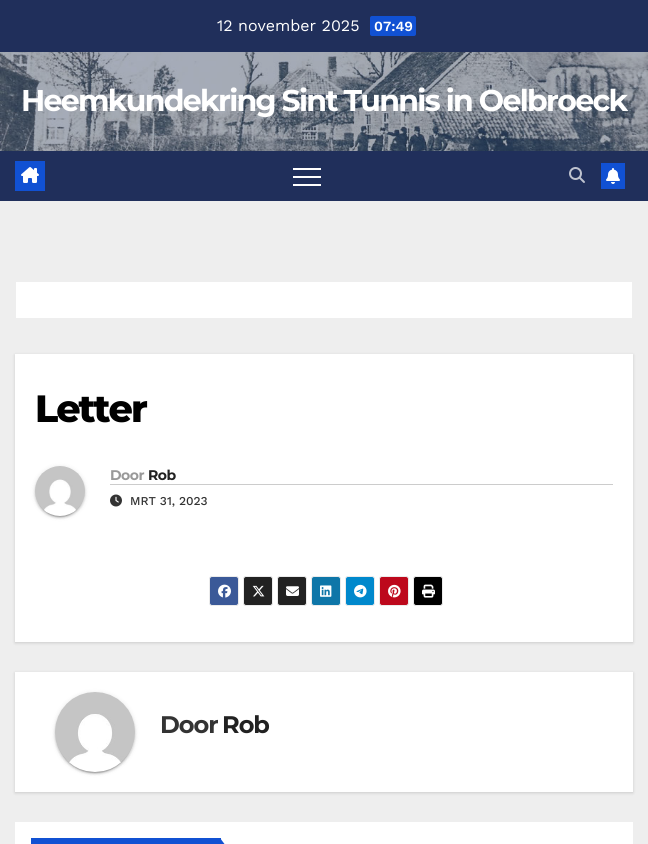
import math
import cairo

surface = cairo.ImageSurface(cairo.FORMAT_RGB24, 648, 844)
ctx = cairo.Context(surface)
options = cairo.FontOptions()
options.set_hint_metrics(cairo.HINT_METRICS_OFF)
options.set_hint_style(cairo.HINT_STYLE_NONE)
ctx.set_font_options(options)
ctx.set_miter_limit(4)


def set_color(code):
    ctx.set_source_rgb(*(v / 255 for v in bytes.fromhex(code[-6:])))


def draw_text(x, y, s, family, size, color, bold=False, italic=False):
    ctx.select_font_face(family, cairo.FONT_SLANT_ITALIC if italic else cairo.FONT_SLANT_NORMAL, cairo.FONT_WEIGHT_BOLD if bold else cairo.FONT_WEIGHT_NORMAL)
    ctx.set_font_size(size)
    set_color(color)
    ctx.move_to(x, y)
    ctx.show_text(s)


def draw_spaced(x, y, s, letter, word):
    ctx.move_to(x, y)
    for ch in s:
        ctx.show_text(ch)
        ctx.rel_move_to(letter + word * (ch == ' '), 0)


def fill_rect(x, y, w, h, color):
    set_color(color)
    ctx.rectangle(x, y, w, h)
    ctx.fill()


def rounded_rect(x, y, w, h, r):
    ctx.new_sub_path()
    for i, (u, v) in enumerate([(x + w - r, y + h - r), (x + r, y + h - r), (x + r, y + r), (x + w - r, y + r)]):
        ctx.arc(u, v, r, i * math.pi / 2, (i + 1) * math.pi / 2)
    ctx.close_path()


def draw_shadow(x, y, w, h, r, blur, alpha):
    ctx.push_group_with_content(cairo.CONTENT_ALPHA)
    ctx.set_operator(cairo.OPERATOR_SOURCE)
    for i in range(15, -16, -2):
        e = blur * i / 6
        if min(w, h) + 2 * e > 0:
            ctx.set_source_rgba(0, 0, 0, alpha * math.erfc((i - 1) / 8.5) / 2)
            rounded_rect(x - e, y - e, w + 2 * e, h + 2 * e, max(0, min(r + e + blur * .6, min(w, h) / 2 + e)))
            ctx.fill()
    ctx.mask(ctx.pop_group())


def draw_image(path, x, y, w, h):
    ctx.save()
    ctx.set_source_surface(cairo.ImageSurface.create_from_png(path), x, y)
    ctx.rectangle(x, y, w, h)
    ctx.fill()
    ctx.restore()


set_color("#eeeeee")
ctx.paint()
fill_rect(0, 0, 648, 52, "#202f5b")
draw_text(217, 31, "12 november 2025", "Work Sans", 16, "#ffffff")
set_color("#1151d3")
rounded_rect(370, 16, 46, 20, 2)
ctx.fill()
draw_text(374, 31, "07:49", "Work Sans SemiBold", 14, "#ffffff")
draw_image("assets/img1.png", 0, 52, 648, 99)
ctx.select_font_face("Montserrat", cairo.FONT_SLANT_NORMAL, cairo.FONT_WEIGHT_BOLD)
ctx.set_font_size(30)
draw_spaced(21, 111, "Heemkundekring Sint Tunnis in Oelbroeck", -1.7, 0)
fill_rect(0, 151, 648, 50, "#202f5b")
fill_rect(15, 161, 30, 30, "#1151d3")
draw_image("assets/img2.png", 21, 167, 18, 16)
fill_rect(293, 168, 28, 2, "#ffffff")
fill_rect(293, 176, 28, 2, "#ffffff")
fill_rect(293, 184, 28, 2, "#ffffff")
draw_image("assets/img3.png", 569, 167, 16, 16)
fill_rect(601, 163, 24, 26, "#1151d3")
draw_image("assets/img4.png", 606, 168, 14, 16)
fill_rect(16, 282, 616, 36, "#ffffff")
set_color("#000000")
draw_shadow(15, 355, 618, 288, 0, 1.5, 0.15)
fill_rect(15, 354, 618, 288, "#ffffff")
ctx.select_font_face("Montserrat ExtraBold")
ctx.set_font_size(38)
set_color("#000000")
draw_spaced(35, 422, "Letter", -2, 0)
set_color("#000000")
draw_shadow(35, 467, 50, 50, 25, 2.5, 0.12)
draw_shadow(37, 471, 46, 46, 23, 0.5, 0.2)
draw_shadow(35, 468, 50, 50, 25, 1, 0.14)
draw_image("assets/img5.png", 35, 466, 50, 50)
fill_rect(110, 484, 503, 1, "#cccccc")
ctx.select_font_face("Montserrat", cairo.FONT_SLANT_NORMAL, cairo.FONT_WEIGHT_BOLD)
ctx.set_font_size(14)
set_color("#999999")
draw_spaced(110, 480, "Door", -0.5, 0)
set_color("#212121")
draw_spaced(148, 480, "Rob", -0.5, 0)
draw_image("assets/img6.png", 110, 494, 12, 13)
draw_text(130, 505, "MRT 31, 2023", "Work Sans Medium", 12, "#333333")
set_color("#3b5998")
rounded_rect(209.5, 576.5, 29, 29, 2.5)
ctx.fill_preserve()
set_color("#ebebeb")
ctx.set_line_width(1)
ctx.stroke()
draw_image("assets/img7.png", 218, 584, 13, 14)
set_color("#222222")
rounded_rect(243.5, 576.5, 29, 29, 2.5)
ctx.fill_preserve()
set_color("#ebebeb")
ctx.stroke()
draw_image("assets/img8.png", 252, 585, 13, 12)
set_color("#222222")
rounded_rect(277.5, 576.5, 29, 29, 2.5)
ctx.fill_preserve()
set_color("#ebebeb")
ctx.stroke()
draw_image("assets/img9.png", 286, 586, 13, 10)
set_color("#0e76a8")
rounded_rect(311.5, 576.5, 29, 29, 2.5)
ctx.fill_preserve()
set_color("#ebebeb")
ctx.stroke()
draw_image("assets/img10.png", 320, 585, 12, 12)
set_color("#0088cc")
rounded_rect(345.5, 576.5, 29, 29, 2.5)
ctx.fill_preserve()
set_color("#ebebeb")
ctx.stroke()
draw_image("assets/img11.png", 354, 584, 13, 14)
set_color("#bd081c")
rounded_rect(379.5, 576.5, 29, 29, 2.5)
ctx.fill_preserve()
set_color("#ebebeb")
ctx.stroke()
draw_image("assets/img12.png", 388, 584, 13, 14)
set_color("#000000")
rounded_rect(413.5, 576.5, 29, 29, 2.5)
ctx.fill_preserve()
set_color("#ebebeb")
ctx.stroke()
draw_image("assets/img13.png", 422, 584, 13, 14)
set_color("#000000")
draw_shadow(15, 673, 618, 120, 0, 1.5, 0.15)
fill_rect(15, 672, 618, 120, "#ffffff")
set_color("#000000")
draw_shadow(55, 693, 80, 80, 40, 2.5, 0.12)
draw_shadow(57, 697, 76, 76, 38, 0.5, 0.2)
draw_shadow(55, 694, 80, 80, 40, 1, 0.14)
draw_image("assets/img14.png", 55, 692, 80, 80)
ctx.select_font_face("Montserrat", cairo.FONT_SLANT_NORMAL, cairo.FONT_WEIGHT_BOLD)
ctx.set_font_size(24)
set_color("#333333")
draw_spaced(160, 733, "Door", -1, 0)
set_color("#212121")
draw_spaced(222, 733, "Rob", -1, 0)
fill_rect(15, 822, 618, 22, "#ffffff")
fill_rect(31, 838, 190, 6, "#1151d3")
ctx.new_path()
ctx.move_to(220, 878)
ctx.line_to(220, 838)
ctx.line_to(250, 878)
ctx.close_path()
ctx.fill()
surface.write_to_png("output.png")
